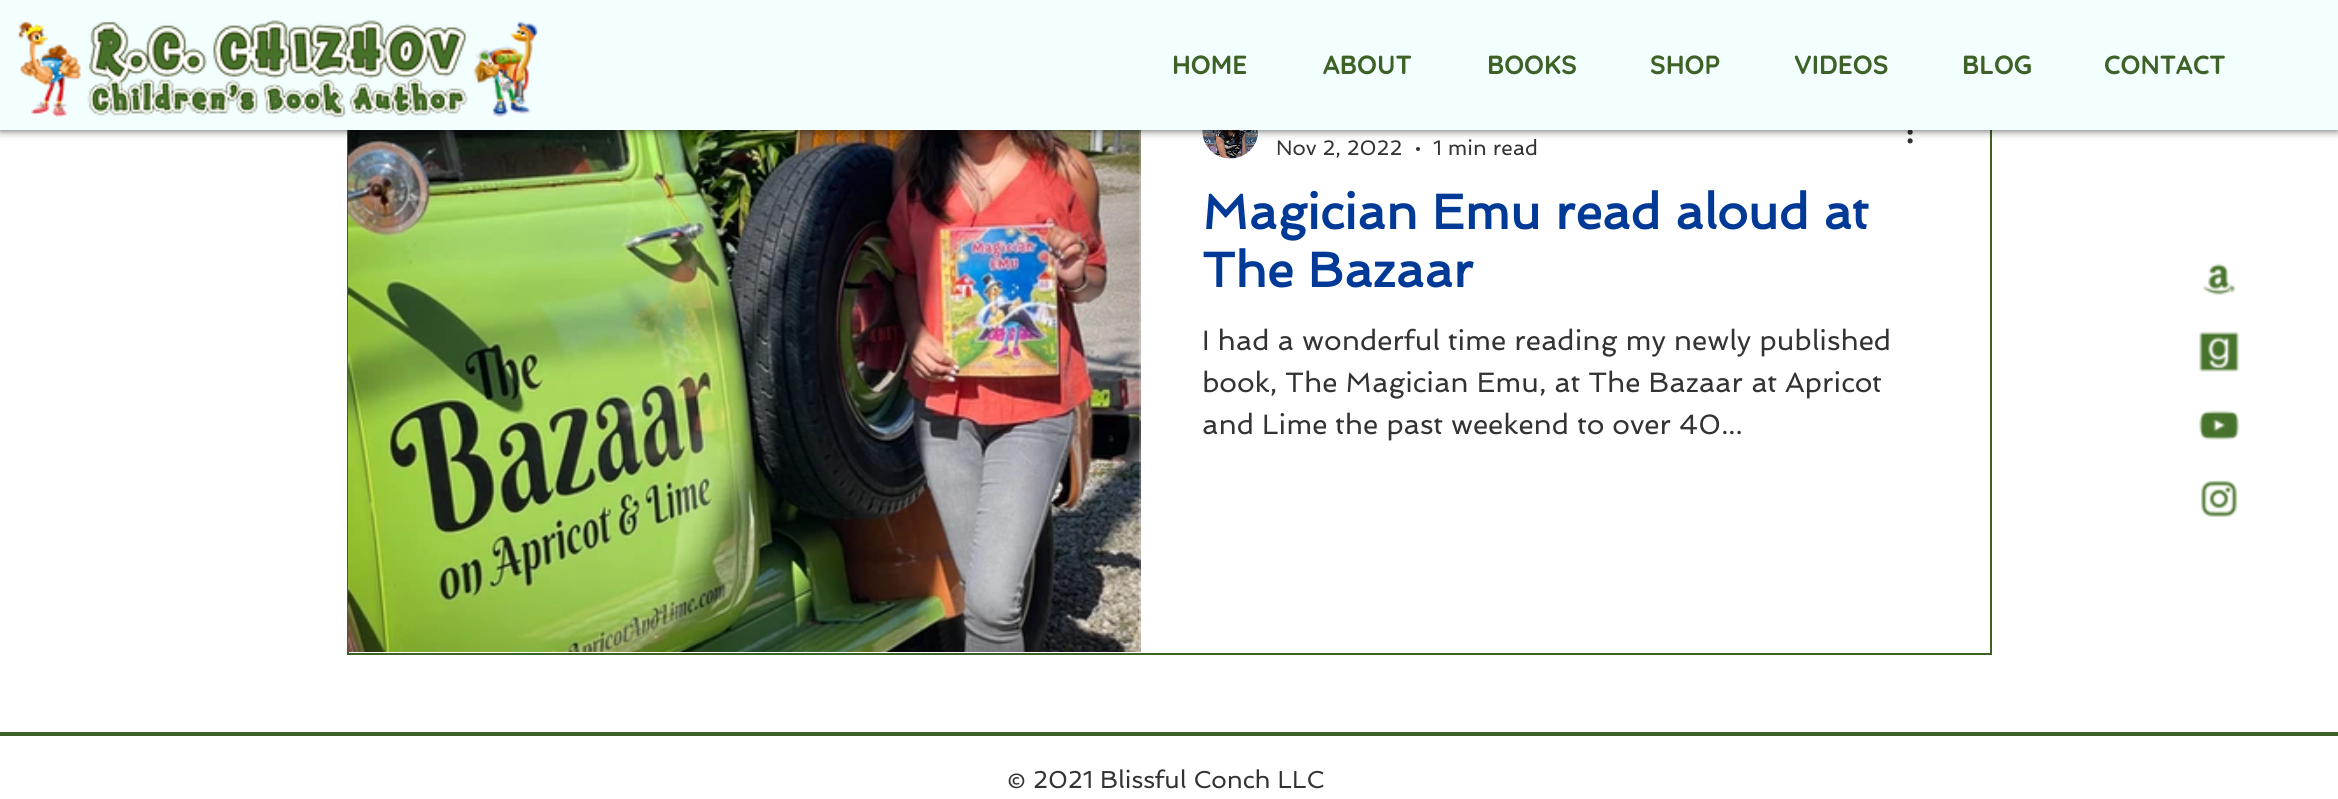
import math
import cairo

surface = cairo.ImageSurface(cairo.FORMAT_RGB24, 2338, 799)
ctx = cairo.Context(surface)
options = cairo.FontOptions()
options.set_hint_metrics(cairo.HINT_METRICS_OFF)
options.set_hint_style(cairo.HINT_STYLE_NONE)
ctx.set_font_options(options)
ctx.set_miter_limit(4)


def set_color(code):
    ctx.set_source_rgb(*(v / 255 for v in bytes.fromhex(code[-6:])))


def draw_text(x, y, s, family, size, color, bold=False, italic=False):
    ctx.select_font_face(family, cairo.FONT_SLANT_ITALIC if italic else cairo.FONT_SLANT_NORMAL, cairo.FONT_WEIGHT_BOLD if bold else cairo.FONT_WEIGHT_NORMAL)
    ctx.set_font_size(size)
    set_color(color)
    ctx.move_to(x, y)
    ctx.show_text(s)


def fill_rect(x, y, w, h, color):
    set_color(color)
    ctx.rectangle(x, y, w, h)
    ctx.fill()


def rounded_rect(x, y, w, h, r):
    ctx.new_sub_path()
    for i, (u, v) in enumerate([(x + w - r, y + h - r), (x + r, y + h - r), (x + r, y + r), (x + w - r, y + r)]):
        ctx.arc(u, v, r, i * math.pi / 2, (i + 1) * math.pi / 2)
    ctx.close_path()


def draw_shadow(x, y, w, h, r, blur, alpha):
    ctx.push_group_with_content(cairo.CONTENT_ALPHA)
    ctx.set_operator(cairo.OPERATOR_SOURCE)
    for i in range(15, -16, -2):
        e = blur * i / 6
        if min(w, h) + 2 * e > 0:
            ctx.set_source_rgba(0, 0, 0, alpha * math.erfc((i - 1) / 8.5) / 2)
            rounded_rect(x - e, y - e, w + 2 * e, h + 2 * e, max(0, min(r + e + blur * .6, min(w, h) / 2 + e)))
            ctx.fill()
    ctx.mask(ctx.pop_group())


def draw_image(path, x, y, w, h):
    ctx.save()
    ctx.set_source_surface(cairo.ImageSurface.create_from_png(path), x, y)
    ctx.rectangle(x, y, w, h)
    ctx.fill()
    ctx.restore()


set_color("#ffffff")
ctx.paint()
ctx.rectangle(348, 59, 1643, 595)
set_color("#3d6126")
ctx.stroke()
draw_image("assets/img2.png", 348, 130, 793, 522)
ctx.set_source_rgba(1, 1, 1, 0.2)
ctx.rectangle(1139, 130, 2, 522)
ctx.fill()
draw_image("assets/img3.png", 1907, 130, 6, 14)
draw_image("assets/img4.png", 1202, 130, 57, 29)
set_color("#000000")
draw_shadow(0, 0, 2338, 130, 0, 4.5, 0.7)
fill_rect(0, 0, 2338, 130, "#f3ffff")
draw_image("assets/img1.png", 17, 20, 521, 98)
draw_text(1172, 74, "HOME", "Quicksand", 26.25, "#3d6126", bold=True)
draw_text(1323, 74, "ABOUT", "Quicksand", 26.25, "#3d6126", bold=True)
draw_text(1487, 74, "BOOKS", "Quicksand", 26.25, "#3d6126", bold=True)
draw_text(1650, 74, "SHOP", "Quicksand", 26.25, "#3d6126", bold=True)
draw_text(1794, 74, "VIDEOS", "Quicksand", 26.25, "#3d6126", bold=True)
draw_text(1962, 74, "BLOG", "Quicksand", 26.25, "#3d6126", bold=True)
draw_text(2104, 74, "CONTACT", "Quicksand", 26.25, "#3d6126", bold=True)
draw_text(1276, 155, "Nov 2, 2022", "Spinnaker", 21, "#333333")
ctx.new_path()
ctx.arc(1418, 149, 2, 0, 2 * math.pi)
ctx.fill()
draw_text(1433, 155, "1 min read", "Spinnaker", 21, "#333333")
draw_text(1202, 229, "Magician Emu read aloud at", "Spinnaker", 49, "#003a96", bold=True)
draw_text(1202, 287, "The Bazaar", "Spinnaker", 49, "#003a96", bold=True)
draw_text(1202, 350, "I had a wonderful time reading my newly published", "Spinnaker", 28, "#333333")
draw_text(1202, 392, "book, The Magician Emu, at The Bazaar at Apricot", "Spinnaker", 28, "#333333")
draw_text(1202, 434, "and Lime the past weekend to over 40...", "Spinnaker", 28, "#333333")
draw_image("assets/img5.png", 2202, 263, 34, 32)
draw_image("assets/img6.png", 2199, 331, 41, 41)
draw_image("assets/img7.png", 2199, 410, 41, 30)
draw_image("assets/img8.png", 2200, 480, 38, 37)
fill_rect(0, 732, 2338, 4, "#3d6126")
draw_text(1007, 788, "© 2021 Blissful Conch LLC", "Spinnaker", 24.5, "#333333")
surface.write_to_png("output.png")
